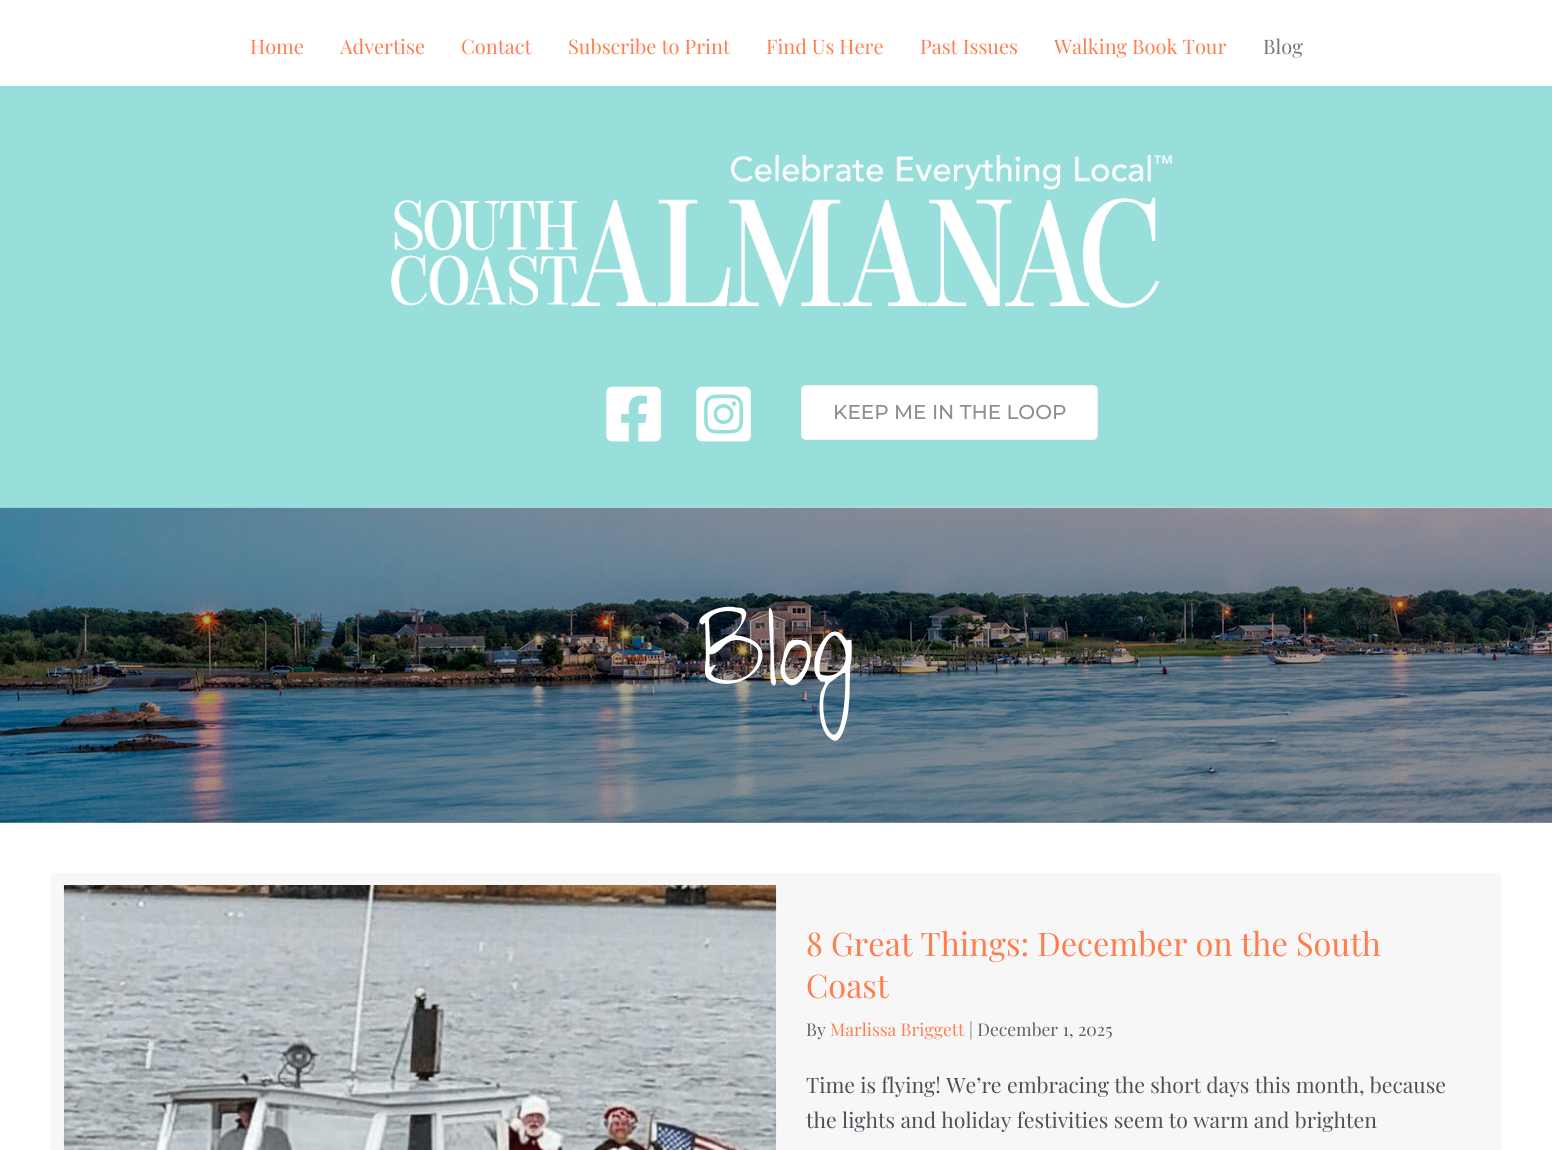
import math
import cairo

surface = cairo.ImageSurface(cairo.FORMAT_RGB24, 1552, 1150)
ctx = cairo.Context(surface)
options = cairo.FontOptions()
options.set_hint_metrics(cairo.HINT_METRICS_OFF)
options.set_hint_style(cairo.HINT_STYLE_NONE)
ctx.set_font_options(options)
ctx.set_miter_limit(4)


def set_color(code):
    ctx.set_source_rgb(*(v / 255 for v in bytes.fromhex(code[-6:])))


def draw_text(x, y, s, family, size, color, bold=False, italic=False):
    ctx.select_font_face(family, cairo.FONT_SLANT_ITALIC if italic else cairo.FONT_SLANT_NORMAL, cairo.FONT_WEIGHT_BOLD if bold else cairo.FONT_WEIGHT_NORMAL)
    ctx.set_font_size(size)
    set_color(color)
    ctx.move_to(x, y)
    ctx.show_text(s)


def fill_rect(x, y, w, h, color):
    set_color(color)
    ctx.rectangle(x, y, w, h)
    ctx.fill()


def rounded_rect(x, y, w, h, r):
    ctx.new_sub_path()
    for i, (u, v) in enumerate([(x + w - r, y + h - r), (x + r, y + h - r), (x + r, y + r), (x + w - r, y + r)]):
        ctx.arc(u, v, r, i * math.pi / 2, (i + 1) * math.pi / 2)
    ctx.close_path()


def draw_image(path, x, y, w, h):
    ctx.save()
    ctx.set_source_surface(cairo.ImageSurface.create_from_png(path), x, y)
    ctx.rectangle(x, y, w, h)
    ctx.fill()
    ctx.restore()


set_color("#ffffff")
ctx.paint()
draw_text(250, 54, "Home", "Playfair Display", 20, "#ff7e50")
draw_text(340, 54, "Advertise", "Playfair Display", 20, "#ff7e50")
draw_text(461, 54, "Contact", "Playfair Display", 20, "#ff7e50")
draw_text(568, 54, "Subscribe to Print", "Playfair Display", 20, "#ff7e50")
draw_text(766, 54, "Find Us Here", "Playfair Display", 20, "#ff7e50")
draw_text(920, 54, "Past Issues", "Playfair Display", 20, "#ff7e50")
draw_text(1054, 54, "Walking Book Tour", "Playfair Display", 20, "#ff7e50")
draw_text(1263, 54, "Blog", "Playfair Display", 20, "#757575")
fill_rect(0, 86, 1552, 422, "#98dfdb")
draw_image("assets/img1.png", 391, 155, 782, 153)
draw_image("assets/img2.png", 606, 386, 55, 56)
draw_image("assets/img3.png", 696, 386, 55, 56)
set_color("#ffffff")
rounded_rect(801.5, 385.5, 296, 54, 4.5)
ctx.fill_preserve()
set_color("#f3f3f3")
ctx.set_line_width(1)
ctx.stroke()
draw_text(833, 419, "KEEP ME IN THE LOOP", "Montserrat Thin", 20, "#8e8e8e")
fill_rect(0, 822, 1552, 1, "#9b9b9b")
draw_image("assets/img4.png", 0, 507, 1552, 316)
draw_text(698, 684, "Blog", "Give You Glory", 100, "#ffffff")
fill_rect(51, 873, 1450, 277, "#f7f7f7")
draw_image("assets/img5.png", 63, 885, 714, 265)
draw_text(806, 956, "8 Great Things: December on the South", "Playfair Display", 32.5, "#ff7e50")
draw_text(806, 998, "Coast", "Playfair Display", 32.5, "#ff7e50")
draw_text(806, 1036, "By", "Playfair Display", 17.5, "#606060")
draw_text(830, 1036, "Marlissa Briggett", "Playfair Display", 17.5, "#ff7e50")
draw_text(969, 1036, "| December 1, 2025", "Playfair Display", 17.5, "#606060")
draw_text(806, 1093, "Time is flying! We’re embracing the short days this month, because", "Playfair Display", 21.25, "#4b4f58")
draw_text(806, 1128, "the lights and holiday festivities seem to warm and brighten", "Playfair Display", 21.25, "#4b4f58")
surface.write_to_png("output.png")
